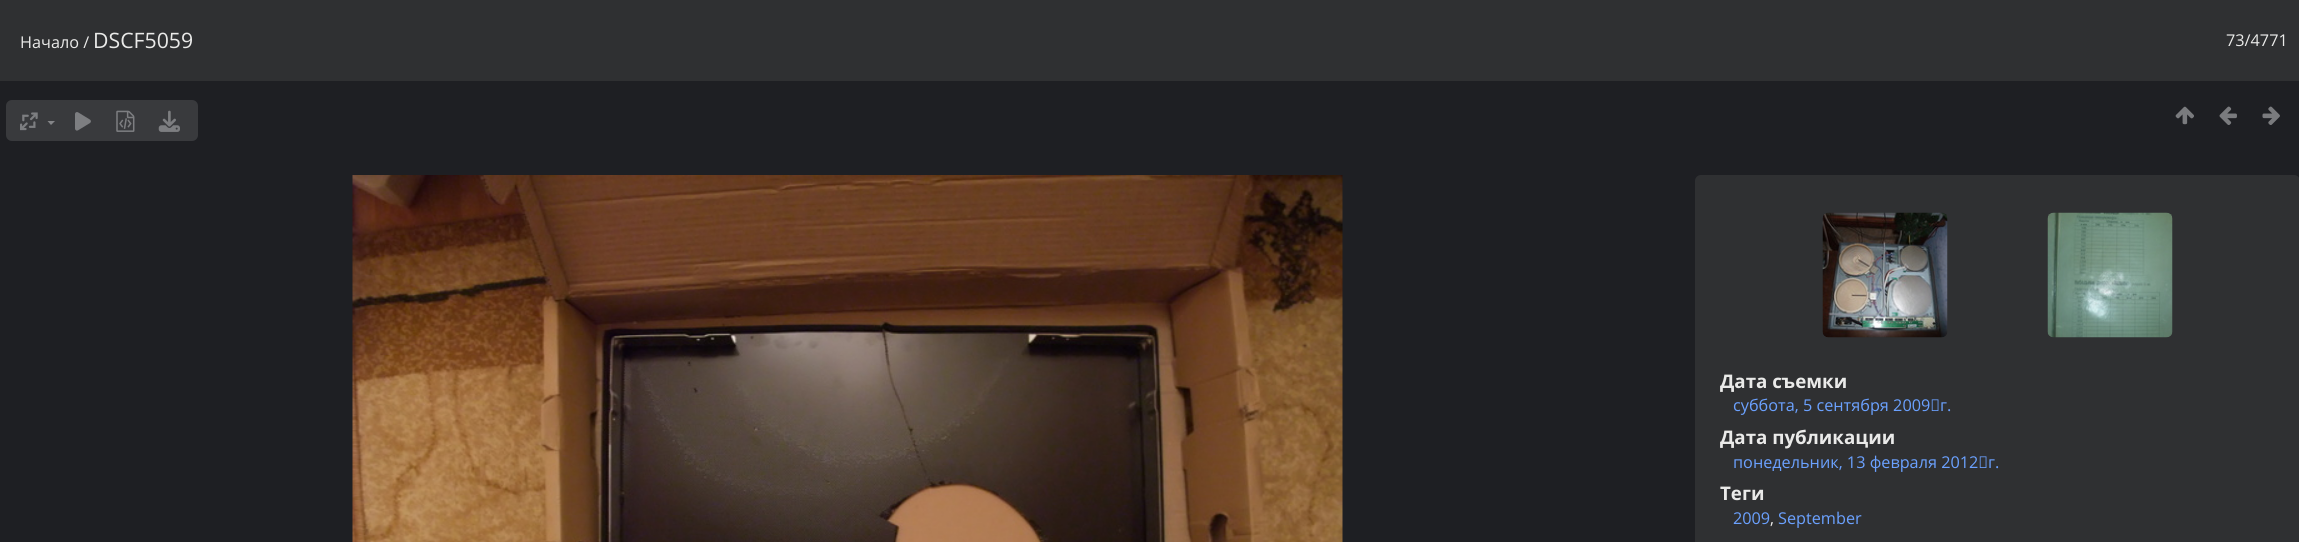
import math
import cairo

surface = cairo.ImageSurface(cairo.FORMAT_RGB24, 2299, 542)
ctx = cairo.Context(surface)
options = cairo.FontOptions()
options.set_hint_metrics(cairo.HINT_METRICS_OFF)
options.set_hint_style(cairo.HINT_STYLE_NONE)
ctx.set_font_options(options)
ctx.set_miter_limit(4)


def set_color(code):
    ctx.set_source_rgb(*(v / 255 for v in bytes.fromhex(code[-6:])))


def draw_text(x, y, s, family, size, color, bold=False, italic=False):
    ctx.select_font_face(family, cairo.FONT_SLANT_ITALIC if italic else cairo.FONT_SLANT_NORMAL, cairo.FONT_WEIGHT_BOLD if bold else cairo.FONT_WEIGHT_NORMAL)
    ctx.set_font_size(size)
    set_color(color)
    ctx.move_to(x, y)
    ctx.show_text(s)


def fill_rect(x, y, w, h, color):
    set_color(color)
    ctx.rectangle(x, y, w, h)
    ctx.fill()


def rounded_rect(x, y, w, h, r):
    ctx.new_sub_path()
    for i, (u, v) in enumerate([(x + w - r, y + h - r), (x + r, y + h - r), (x + r, y + r), (x + w - r, y + r)]):
        ctx.arc(u, v, r, i * math.pi / 2, (i + 1) * math.pi / 2)
    ctx.close_path()


def draw_image(path, x, y, w, h):
    ctx.save()
    ctx.set_source_surface(cairo.ImageSurface.create_from_png(path), x, y)
    ctx.rectangle(x, y, w, h)
    ctx.fill()
    ctx.restore()


set_color("#1e1f23")
ctx.paint()
fill_rect(0, 0, 2299, 81, "#2f3032")
draw_text(20, 48, "Начало /", "Open Sans", 16.25, "#eaeae9")
draw_text(93, 48, "DSCF5059", "Open Sans", 21.25, "#eaeae9")
draw_text(2226, 46, "73/4771", "Open Sans", 16.25, "#eaeae9")
set_color("#393a3d")
rounded_rect(6, 100, 192, 41, 6)
ctx.fill()
draw_image("assets/img1.png", 20, 112, 18, 19)
set_color("#848588")
ctx.new_path()
ctx.move_to(47.5, 121)
ctx.line_to(55, 121)
ctx.line_to(51, 125)
ctx.close_path()
ctx.fill()
draw_image("assets/img2.png", 75, 112, 16, 19)
draw_image("assets/img3.png", 116, 110, 19, 22)
draw_image("assets/img4.png", 158, 110, 22, 22)
draw_image("assets/img5.png", 2175, 106, 19, 19)
draw_image("assets/img6.png", 2219, 106, 18, 19)
draw_image("assets/img7.png", 2262, 106, 18, 19)
draw_image("assets/img8.png", 352, 175, 991, 367)
set_color("#2f3032")
rounded_rect(1695, 175, 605, 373, 6)
ctx.fill()
draw_image("assets/img9.png", 1822, 212, 126, 126)
draw_image("assets/img10.png", 2047, 212, 126, 126)
draw_text(1720, 388, "Дата съемки", "Open Sans", 18.75, "#eaeae9", bold=True)
draw_text(1733, 411, "суббота, 5 сентября 2009 г.", "Open Sans", 16.25, "#6ba1ff")
draw_text(1720, 444, "Дата публикации", "Open Sans", 18.75, "#eaeae9", bold=True)
draw_text(1733, 468, "понедельник, 13 февраля 2012 г.", "Open Sans", 16.25, "#6ba1ff")
draw_text(1720, 500, "Теги", "Open Sans", 18.75, "#eaeae9", bold=True)
draw_text(1733, 524, "2009", "Open Sans", 16.25, "#6ba1ff")
draw_text(1770, 524, ",", "Open Sans", 16.25, "#eaeae9")
draw_text(1778, 524, "September", "Open Sans", 16.25, "#6ba1ff")
surface.write_to_png("output.png")
